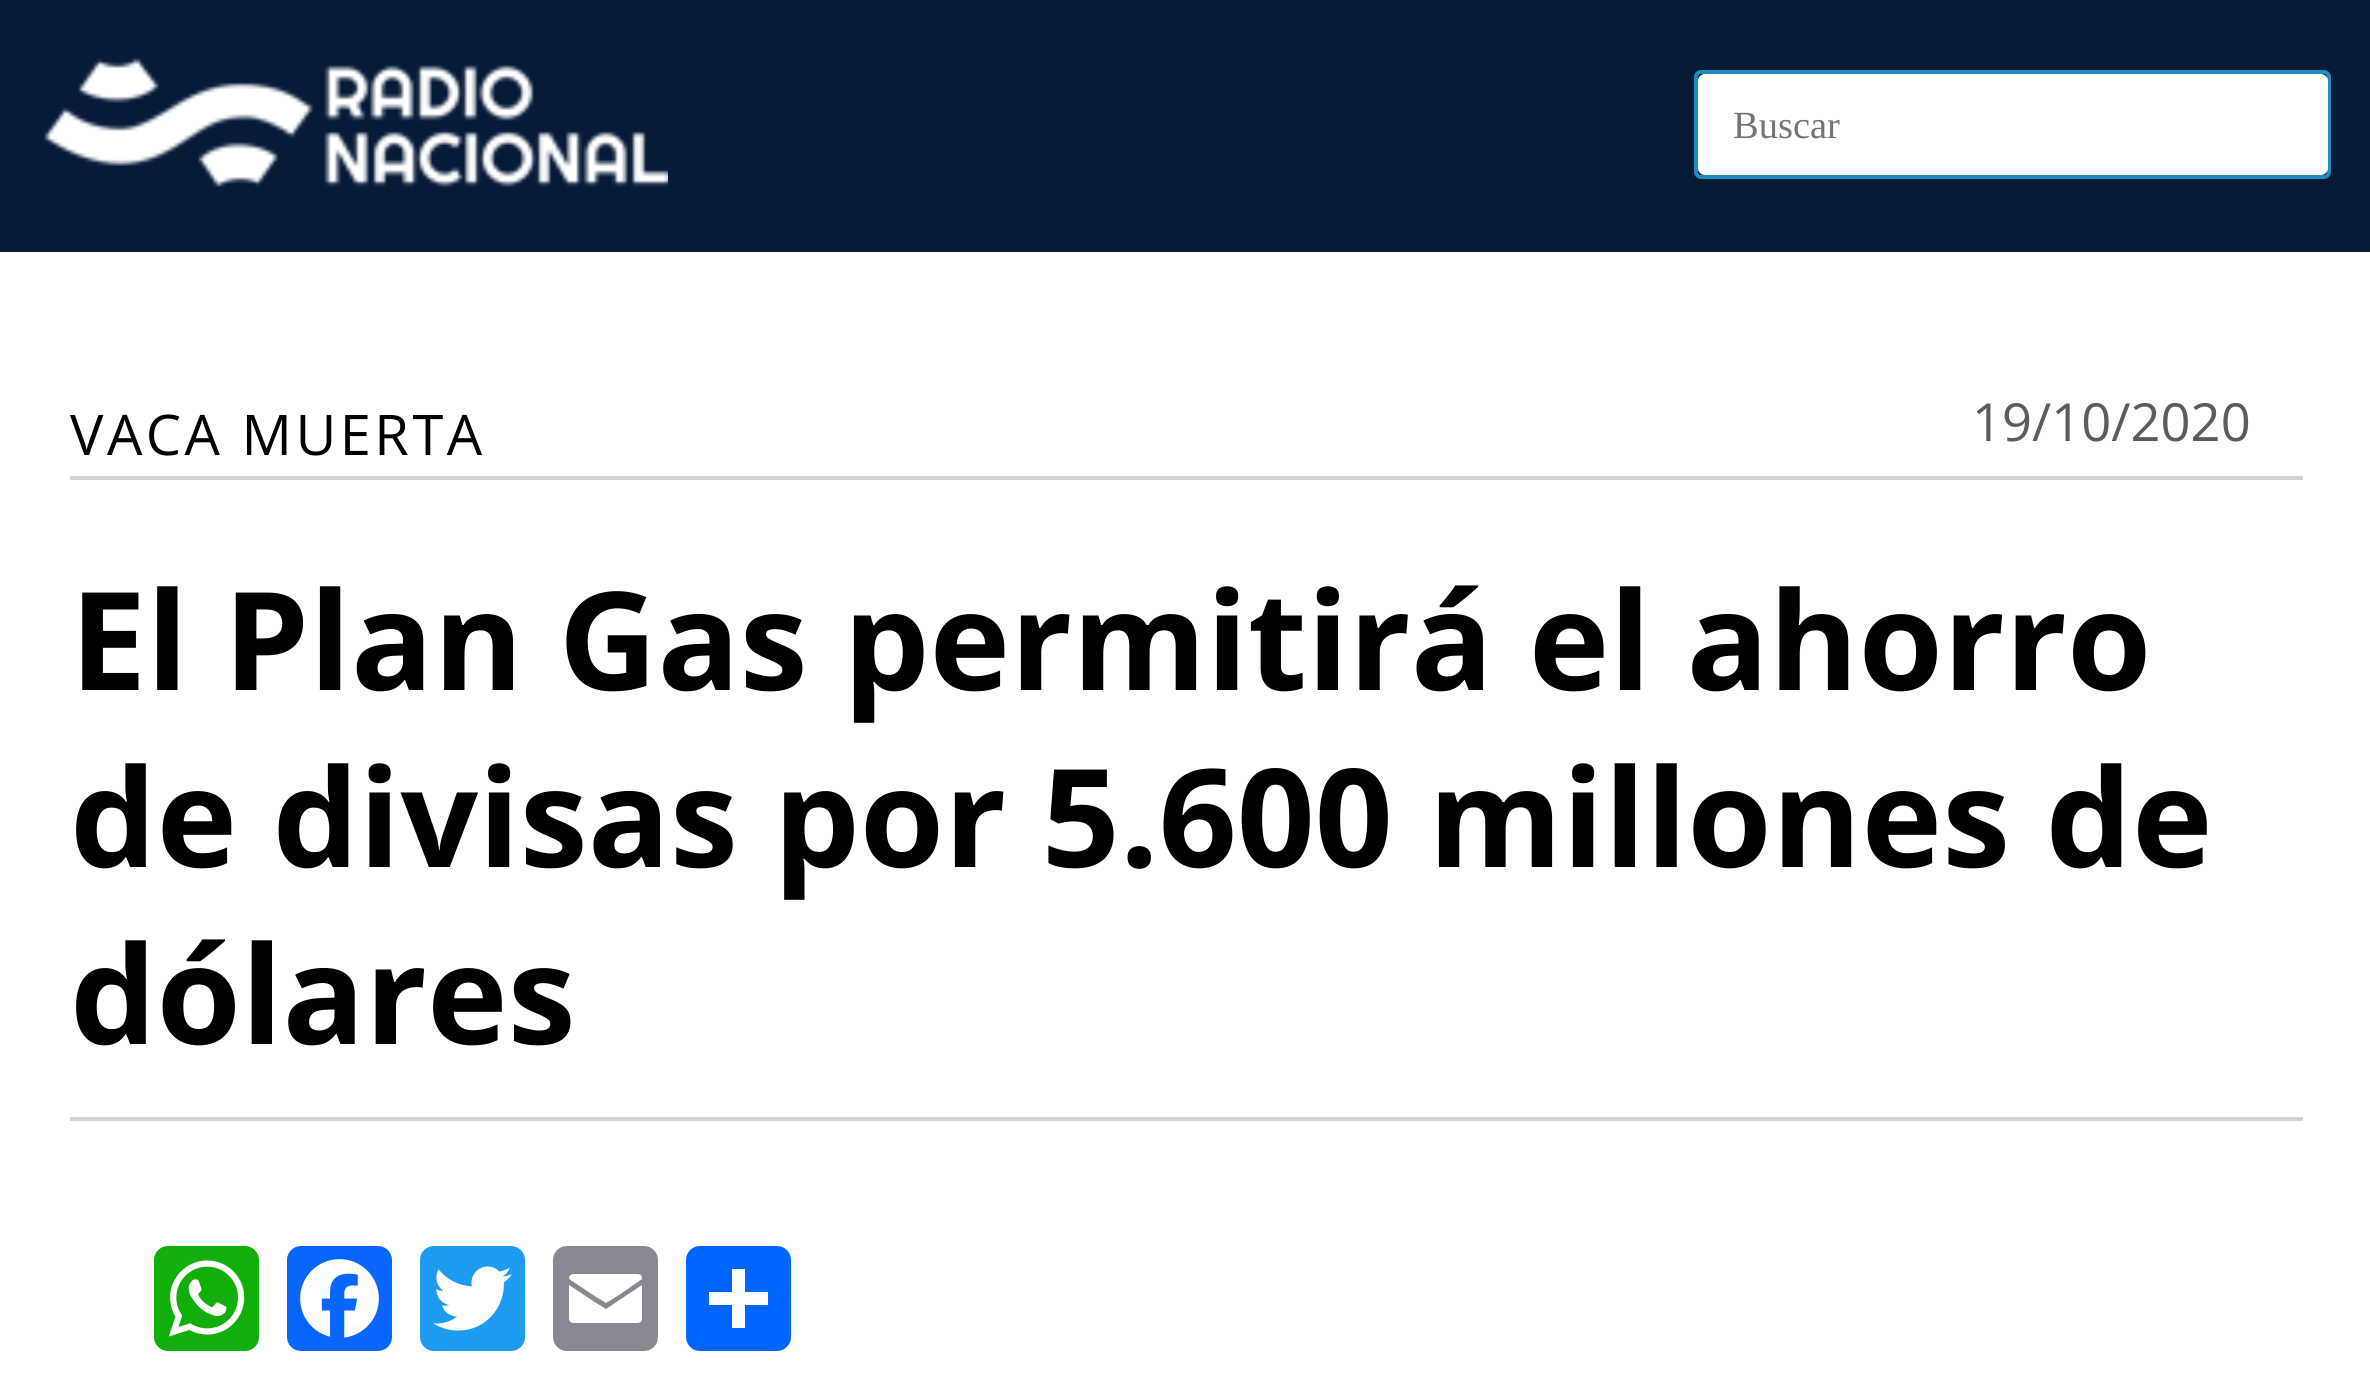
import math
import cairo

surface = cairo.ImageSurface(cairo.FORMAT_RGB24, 2370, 1395)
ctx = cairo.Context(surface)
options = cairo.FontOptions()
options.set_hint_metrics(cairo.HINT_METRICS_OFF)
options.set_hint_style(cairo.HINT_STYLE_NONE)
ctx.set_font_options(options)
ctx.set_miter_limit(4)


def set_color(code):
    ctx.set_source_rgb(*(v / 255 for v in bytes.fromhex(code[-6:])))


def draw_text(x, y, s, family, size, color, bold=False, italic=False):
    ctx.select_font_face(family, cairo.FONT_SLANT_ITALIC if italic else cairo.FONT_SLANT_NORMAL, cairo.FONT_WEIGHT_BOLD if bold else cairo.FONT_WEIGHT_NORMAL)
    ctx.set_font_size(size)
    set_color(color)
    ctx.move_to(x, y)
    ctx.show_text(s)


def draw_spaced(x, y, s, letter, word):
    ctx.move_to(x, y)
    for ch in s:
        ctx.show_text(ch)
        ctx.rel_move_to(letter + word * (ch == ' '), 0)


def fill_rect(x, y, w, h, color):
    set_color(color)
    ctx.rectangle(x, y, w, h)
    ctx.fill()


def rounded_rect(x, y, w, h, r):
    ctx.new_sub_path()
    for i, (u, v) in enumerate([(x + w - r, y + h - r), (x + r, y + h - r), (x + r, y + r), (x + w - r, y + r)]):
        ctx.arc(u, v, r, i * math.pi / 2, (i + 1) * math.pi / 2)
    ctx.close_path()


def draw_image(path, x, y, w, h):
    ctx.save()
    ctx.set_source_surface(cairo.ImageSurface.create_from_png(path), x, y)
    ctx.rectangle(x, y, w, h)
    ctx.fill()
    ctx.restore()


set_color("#ffffff")
ctx.paint()
fill_rect(0, 0, 2370, 252, "#071b36")
draw_image("assets/img1.png", 44, 58, 624, 129)
rounded_rect(1696, 72, 633, 105, 5)
set_color("#1e8cbe")
ctx.set_line_width(4)
ctx.stroke()
set_color("#ffffff")
rounded_rect(1698, 74, 630, 101, 7)
ctx.fill()
draw_text(1733, 138, "Buscar", "Liberation Serif", 38.5, "#757575")
fill_rect(70, 476, 2233, 4, "#d3d3d3")
ctx.select_font_face("Open Sans")
ctx.set_font_size(56)
set_color("#000000")
draw_spaced(70, 455, "VACA MUERTA", 3.5, 0)
draw_text(1972, 441, "19/10/2020", "Open Sans", 52.5, "#5c5c5c")
fill_rect(70, 1117, 2233, 4, "#d3d3d3")
draw_text(70, 690, "El Plan Gas permitirá el ahorro", "Open Sans", 136.5, "#000000", bold=True)
draw_text(70, 867, "de divisas por 5.600 millones de", "Open Sans", 136.5, "#000000", bold=True)
draw_text(70, 1044, "dólares", "Open Sans", 136.5, "#000000", bold=True)
set_color("#12af0a")
rounded_rect(154, 1246, 105, 105, 14)
ctx.fill()
draw_image("assets/img2.png", 168, 1260, 77, 77)
set_color("#0866ff")
rounded_rect(287, 1246, 105, 105, 14)
ctx.fill()
draw_image("assets/img3.png", 300, 1259, 79, 79)
set_color("#1d9bf0")
rounded_rect(420, 1246, 105, 105, 14)
ctx.fill()
draw_image("assets/img4.png", 433, 1266, 79, 65)
set_color("#888990")
rounded_rect(553, 1246, 105, 105, 14)
ctx.fill()
set_color("#ffffff")
ctx.new_path()
ctx.move_to(642, 1317)
ctx.line_to(642, 1285)
ctx.line_to(606, 1309)
ctx.line_to(593, 1301)
ctx.line_to(569, 1285)
ctx.line_to(569, 1317)
ctx.curve_to(569, 1322, 570, 1323, 575, 1323)
ctx.line_to(636, 1323)
ctx.curve_to(641, 1323, 642, 1322, 642, 1317)
ctx.move_to(642, 1279)
ctx.curve_to(642, 1275, 641, 1274, 636, 1274)
ctx.line_to(575, 1274)
ctx.curve_to(570, 1274, 569, 1276, 569, 1279)
ctx.line_to(593, 1295)
ctx.line_to(606, 1303)
ctx.line_to(619, 1295)
ctx.close_path()
ctx.fill()
set_color("#0166ff")
rounded_rect(686, 1246, 105, 105, 14)
ctx.fill()
fill_rect(732, 1269, 13, 59, "#ffffff")
fill_rect(709, 1292, 59, 13, "#ffffff")
surface.write_to_png("output.png")
